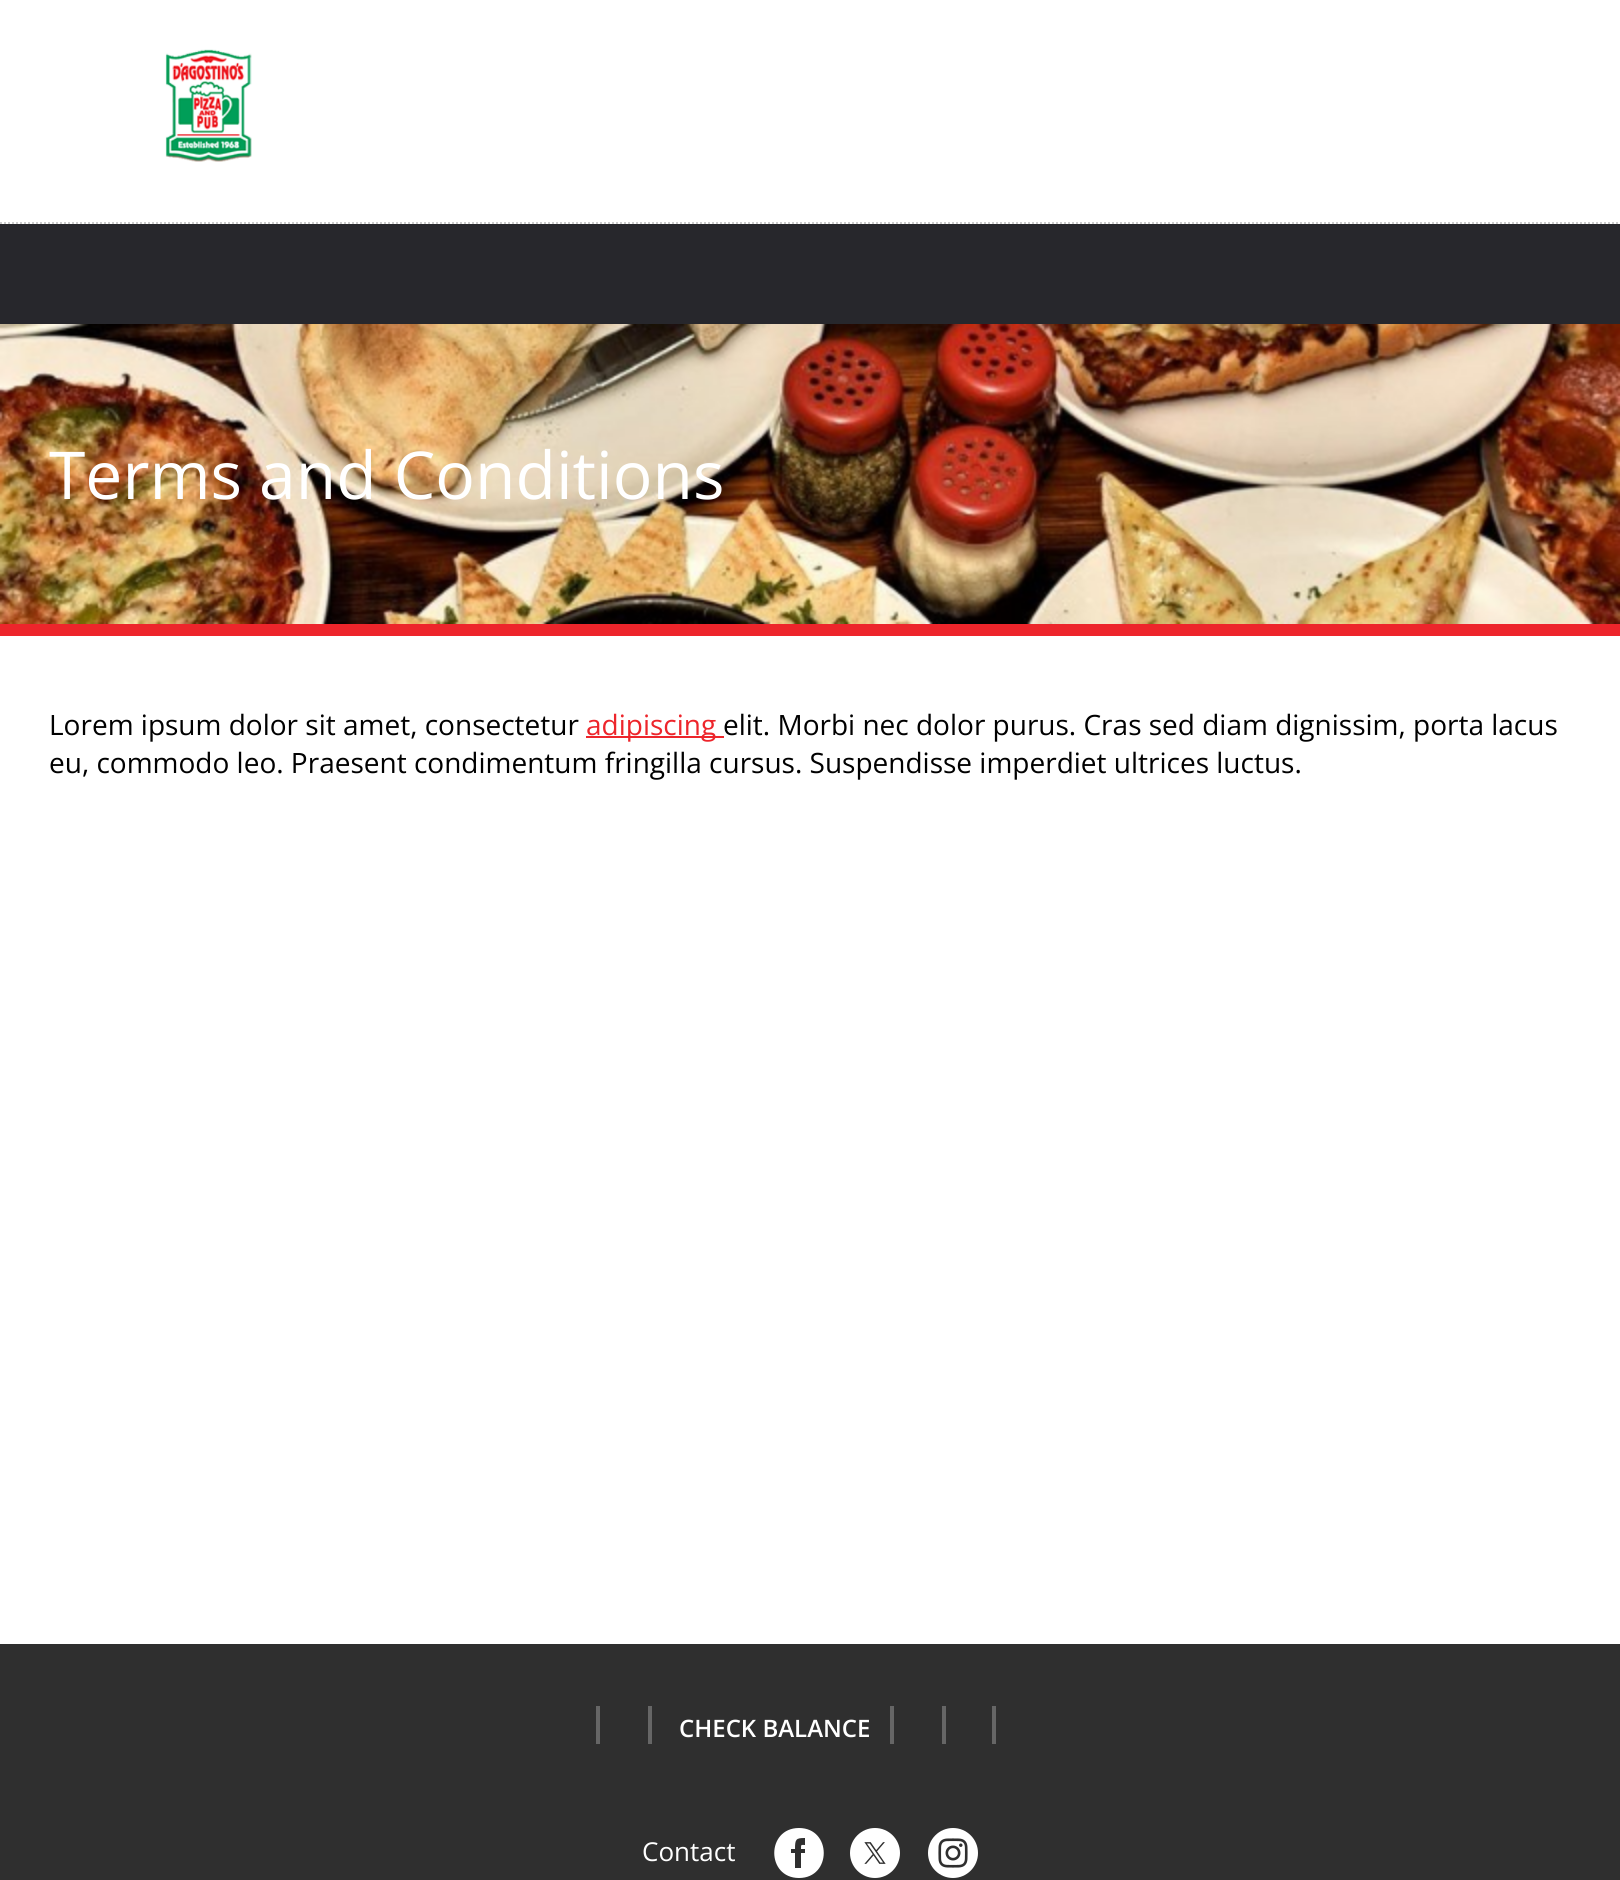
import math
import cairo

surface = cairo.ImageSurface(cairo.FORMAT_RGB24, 1620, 1880)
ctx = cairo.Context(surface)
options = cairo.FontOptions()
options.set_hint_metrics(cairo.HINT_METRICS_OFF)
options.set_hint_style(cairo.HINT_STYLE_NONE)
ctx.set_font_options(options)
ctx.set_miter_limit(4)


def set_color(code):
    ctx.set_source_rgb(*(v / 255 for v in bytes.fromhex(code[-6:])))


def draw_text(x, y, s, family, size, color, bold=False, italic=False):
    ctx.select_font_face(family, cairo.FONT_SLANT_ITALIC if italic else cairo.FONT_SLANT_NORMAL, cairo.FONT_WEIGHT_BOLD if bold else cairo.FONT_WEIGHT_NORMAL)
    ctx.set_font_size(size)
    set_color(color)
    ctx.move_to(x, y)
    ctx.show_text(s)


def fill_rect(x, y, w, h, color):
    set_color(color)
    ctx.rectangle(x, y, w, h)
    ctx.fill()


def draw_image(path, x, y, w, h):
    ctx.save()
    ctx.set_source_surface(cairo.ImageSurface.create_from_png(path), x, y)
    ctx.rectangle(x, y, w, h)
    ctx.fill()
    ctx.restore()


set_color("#ffffff")
ctx.paint()
draw_image("assets/img1.png", 165, 49, 87, 113)
ctx.new_path()
ctx.move_to(0, 223)
ctx.line_to(1620, 223)
set_color("#cccccc")
ctx.set_dash([2, 2])
ctx.stroke()
fill_rect(0, 224, 1620, 100, "#27272c")
draw_image("assets/img2.png", 0, 324, 1620, 300)
fill_rect(0, 624, 1620, 12, "#ed252b")
draw_text(49, 499, "Terms and Conditions", "Open Sans", 66, "#ffffff")
draw_text(49, 735, "Lorem ipsum dolor sit amet, consectetur", "Open Sans", 28, "#000000")
fill_rect(586, 736, 138, 2, "#ed252b")
draw_text(586, 735, "adipiscing", "Open Sans", 28, "#ed252b")
draw_text(723, 735, "elit. Morbi nec dolor purus. Cras sed diam dignissim, porta lacus", "Open Sans", 28, "#000000")
draw_text(49, 773, "eu, commodo leo. Praesent condimentum fringilla cursus. Suspendisse imperdiet ultrices luctus.", "Open Sans", 28, "#000000")
fill_rect(0, 1644, 1620, 236, "#2f2f2f")
fill_rect(596, 1706, 4, 38, "#666666")
fill_rect(648, 1706, 4, 38, "#666666")
draw_text(679, 1737, "CHECK BALANCE", "Open Sans SemiBold", 24, "#ffffff")
fill_rect(890, 1706, 4, 38, "#666666")
fill_rect(942, 1706, 4, 38, "#666666")
fill_rect(992, 1706, 4, 38, "#666666")
draw_text(642, 1861, "Contact", "Open Sans", 26, "#ffffff")
ctx.new_path()
ctx.move_to(799, 1828)
ctx.curve_to(766, 1828, 766, 1878, 799, 1878)
ctx.curve_to(832, 1878, 832, 1828, 799, 1828)
ctx.close_path()
ctx.move_to(805, 1845)
ctx.curve_to(801, 1845, 801, 1844, 801, 1849)
ctx.line_to(805, 1849)
ctx.line_to(805, 1853)
ctx.line_to(801, 1853)
ctx.line_to(801, 1868)
ctx.line_to(795, 1868)
ctx.line_to(795, 1853)
ctx.line_to(791, 1853)
ctx.line_to(791, 1849)
ctx.line_to(795, 1849)
ctx.curve_to(795, 1839, 796, 1838, 805, 1838)
ctx.close_path()
ctx.fill()
draw_image("assets/img3.png", 850, 1828, 50, 50)
draw_image("assets/img4.png", 928, 1828, 50, 50)
surface.write_to_png("output.png")
